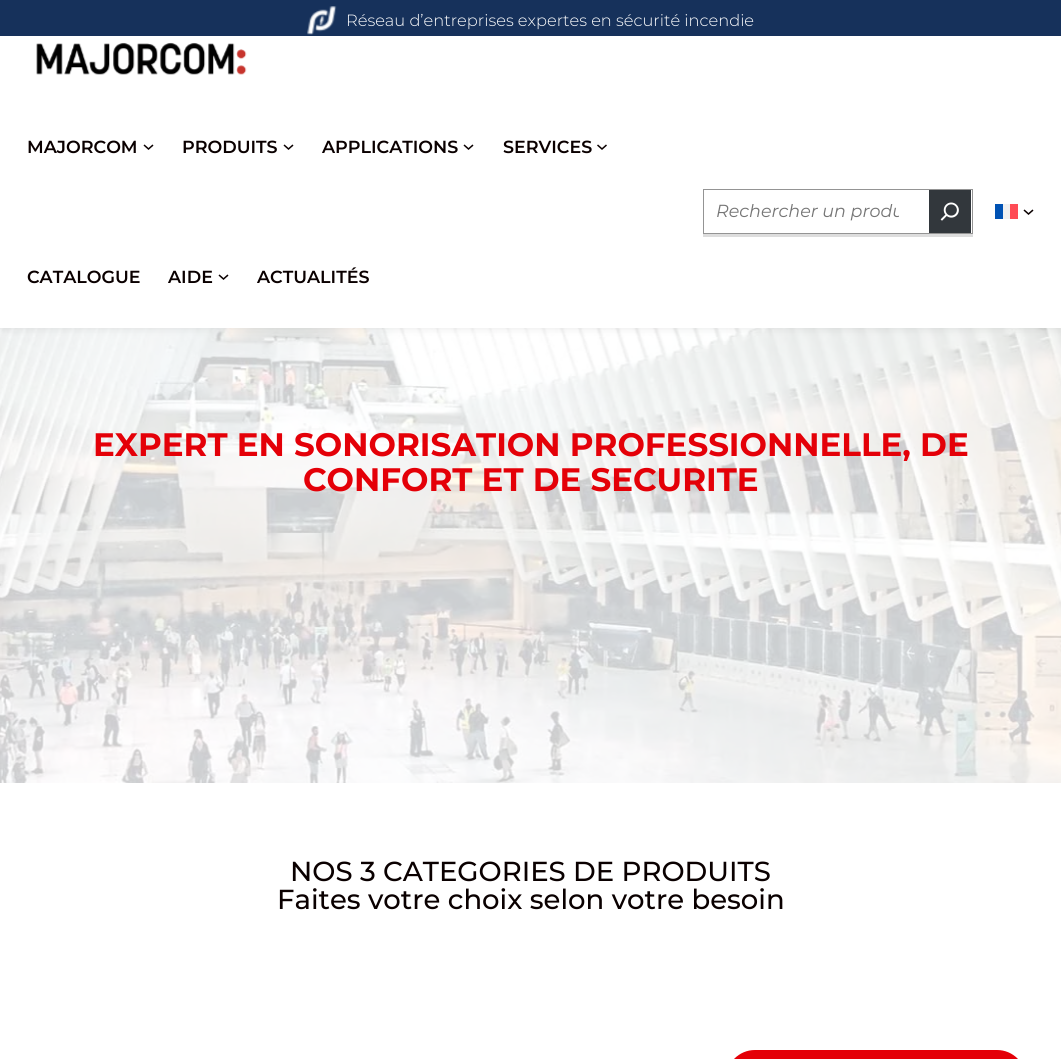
import math
import cairo

surface = cairo.ImageSurface(cairo.FORMAT_RGB24, 1061, 1059)
ctx = cairo.Context(surface)
options = cairo.FontOptions()
options.set_hint_metrics(cairo.HINT_METRICS_OFF)
options.set_hint_style(cairo.HINT_STYLE_NONE)
ctx.set_font_options(options)
ctx.set_miter_limit(4)


def set_color(code):
    ctx.set_source_rgb(*(v / 255 for v in bytes.fromhex(code[-6:])))


def draw_text(x, y, s, family, size, color, bold=False, italic=False):
    ctx.select_font_face(family, cairo.FONT_SLANT_ITALIC if italic else cairo.FONT_SLANT_NORMAL, cairo.FONT_WEIGHT_BOLD if bold else cairo.FONT_WEIGHT_NORMAL)
    ctx.set_font_size(size)
    set_color(color)
    ctx.move_to(x, y)
    ctx.show_text(s)


def fill_rect(x, y, w, h, color):
    set_color(color)
    ctx.rectangle(x, y, w, h)
    ctx.fill()


def rounded_rect(x, y, w, h, r):
    ctx.new_sub_path()
    for i, (u, v) in enumerate([(x + w - r, y + h - r), (x + r, y + h - r), (x + r, y + r), (x + w - r, y + r)]):
        ctx.arc(u, v, r, i * math.pi / 2, (i + 1) * math.pi / 2)
    ctx.close_path()


def draw_shadow(x, y, w, h, r, blur, alpha):
    ctx.push_group_with_content(cairo.CONTENT_ALPHA)
    ctx.set_operator(cairo.OPERATOR_SOURCE)
    for i in range(15, -16, -2):
        e = blur * i / 6
        if min(w, h) + 2 * e > 0:
            ctx.set_source_rgba(0, 0, 0, alpha * math.erfc((i - 1) / 8.5) / 2)
            rounded_rect(x - e, y - e, w + 2 * e, h + 2 * e, max(0, min(r + e + blur * .6, min(w, h) / 2 + e)))
            ctx.fill()
    ctx.mask(ctx.pop_group())


def draw_image(path, x, y, w, h):
    ctx.save()
    ctx.set_source_surface(cairo.ImageSurface.create_from_png(path), x, y)
    ctx.rectangle(x, y, w, h)
    ctx.fill()
    ctx.restore()


set_color("#ffffff")
ctx.paint()
draw_image("assets/img4.png", 0, 328, 1061, 455)
set_color("#000000")
draw_shadow(0, 0, 1061, 328, 0, 4.5, 0.1)
fill_rect(0, 36, 1061, 292, "#ffffff")
fill_rect(0, 0, 1061, 36, "#16315b")
draw_image("assets/img1.png", 307, 6, 30, 29)
draw_text(346, 26, "Réseau d’entreprises expertes en sécurité incendie", "Montserrat Light", 16.25, "#ffffff")
draw_image("assets/img2.png", 36, 42, 211, 33)
draw_text(27, 153, "MAJORCOM", "Montserrat SemiBold", 17.5, "#0a0000")
ctx.new_path()
ctx.move_to(144, 145)
ctx.line_to(148.5, 149)
ctx.line_to(153, 145)
ctx.set_line_width(1.5)
ctx.stroke()
draw_text(182, 153, "PRODUITS", "Montserrat SemiBold", 17.5, "#0a0000")
ctx.new_path()
ctx.move_to(284, 145)
ctx.line_to(288.5, 149)
ctx.line_to(293, 145)
ctx.stroke()
draw_text(322, 153, "APPLICATIONS", "Montserrat SemiBold", 17.5, "#0a0000")
ctx.new_path()
ctx.move_to(464, 145)
ctx.line_to(468.5, 149)
ctx.line_to(473, 145)
ctx.stroke()
draw_text(503, 153, "SERVICES", "Montserrat SemiBold", 17.5, "#0a0000")
ctx.new_path()
ctx.move_to(597.5, 145)
ctx.line_to(602, 149)
ctx.line_to(606.5, 145)
ctx.stroke()
draw_text(27, 283, "CATALOGUE", "Montserrat SemiBold", 17.5, "#0a0000")
draw_text(168, 283, "AIDE", "Montserrat SemiBold", 17.5, "#0a0000")
ctx.new_path()
ctx.move_to(219, 275)
ctx.line_to(223.5, 279)
ctx.line_to(228, 275)
ctx.stroke()
draw_text(257, 283, "ACTUALITÉS", "Montserrat SemiBold", 17.5, "#0a0000")
ctx.rectangle(703.5, 189.5, 269, 44)
set_color("#949494")
ctx.set_line_width(1)
ctx.stroke()
ctx.save()
ctx.rectangle(716, 200, 183, 23)
ctx.clip()
draw_text(716, 217, "Rechercher un produ", "Montserrat", 17.5, "#757575", italic=True)
ctx.restore()
fill_rect(929, 190, 42, 43, "#32373c")
draw_image("assets/img3.png", 940, 202, 19, 19)
fill_rect(703, 234, 270, 3, "#dddddd")
fill_rect(1003, 204, 7, 15, "#f0f0f0")
fill_rect(1010, 204, 8, 15, "#ff4b55")
fill_rect(995, 204, 8, 15, "#0052b4")
ctx.new_path()
ctx.move_to(1024, 210)
ctx.line_to(1028.5, 214)
ctx.line_to(1033, 210)
set_color("#0a0000")
ctx.set_line_width(1.5)
ctx.stroke()
draw_text(93, 456, "EXPERT EN SONORISATION PROFESSIONNELLE, DE", "Montserrat", 32.5, "#e40008", bold=True)
draw_text(303, 491, "CONFORT ET DE SECURITE", "Montserrat", 32.5, "#e40008", bold=True)
draw_text(290, 881, "NOS 3 CATEGORIES DE PRODUITS", "Montserrat Medium", 27.5, "#0a0000")
draw_text(277, 909, "Faites votre choix selon votre besoin", "Montserrat Medium", 27.5, "#0a0000")
set_color("#e40008")
rounded_rect(726, 1050, 300, 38, 29)
ctx.fill()
surface.write_to_png("output.png")
